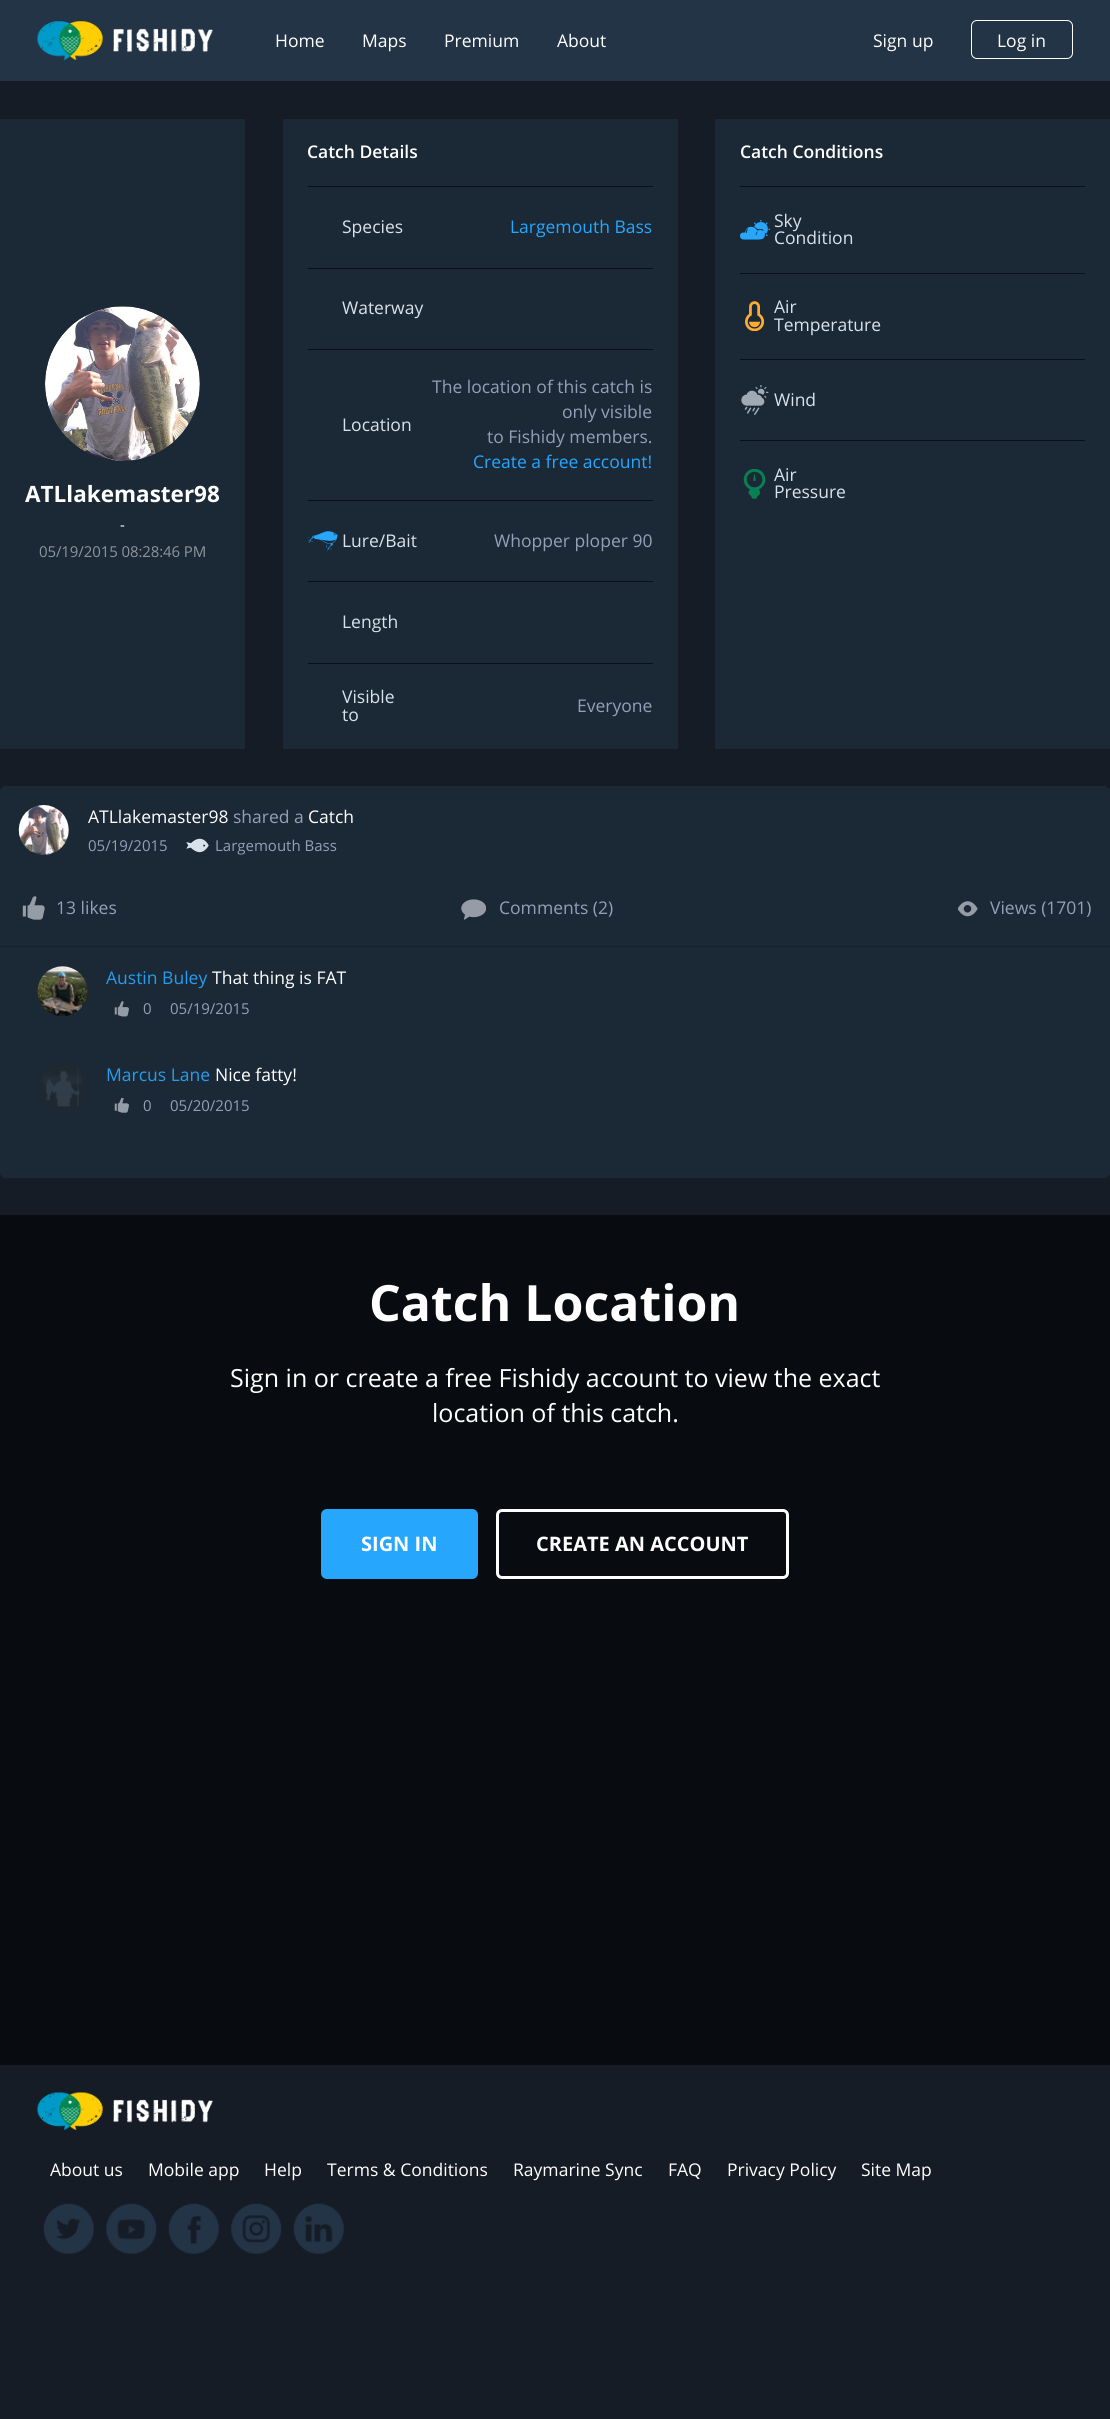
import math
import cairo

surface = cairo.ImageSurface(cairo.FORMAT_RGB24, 1110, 2419)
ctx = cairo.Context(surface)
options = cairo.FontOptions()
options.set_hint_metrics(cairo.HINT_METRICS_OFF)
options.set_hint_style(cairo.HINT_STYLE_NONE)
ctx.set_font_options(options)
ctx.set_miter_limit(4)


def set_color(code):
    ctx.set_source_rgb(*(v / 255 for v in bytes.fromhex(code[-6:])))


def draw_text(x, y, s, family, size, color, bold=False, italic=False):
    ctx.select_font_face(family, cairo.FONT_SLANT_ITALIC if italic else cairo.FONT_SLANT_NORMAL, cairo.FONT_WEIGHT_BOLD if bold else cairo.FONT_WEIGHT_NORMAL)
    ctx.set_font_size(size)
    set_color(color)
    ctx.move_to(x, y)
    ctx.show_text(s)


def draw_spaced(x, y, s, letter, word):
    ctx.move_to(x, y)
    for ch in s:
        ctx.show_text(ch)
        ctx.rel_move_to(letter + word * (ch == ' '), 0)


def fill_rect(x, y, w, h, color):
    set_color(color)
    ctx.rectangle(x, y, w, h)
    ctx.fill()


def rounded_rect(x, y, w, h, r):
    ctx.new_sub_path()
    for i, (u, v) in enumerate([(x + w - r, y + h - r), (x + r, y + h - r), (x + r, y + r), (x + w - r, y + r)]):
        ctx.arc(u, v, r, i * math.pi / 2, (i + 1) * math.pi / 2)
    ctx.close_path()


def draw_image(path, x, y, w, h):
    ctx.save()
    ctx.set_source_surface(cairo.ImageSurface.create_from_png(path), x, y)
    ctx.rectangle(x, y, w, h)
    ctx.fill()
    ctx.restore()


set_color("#151c26")
ctx.paint()
fill_rect(0, 0, 1110, 81, "#233446")
draw_image("assets/img1.png", 37, 21, 176, 39)
draw_text(275, 47, "Home", "Open Sans", 17.5, "#ffffff")
draw_text(362, 47, "Maps", "Open Sans", 17.5, "#ffffff")
draw_text(444, 47, "Premium", "Open Sans", 17.5, "#ffffff")
draw_text(557, 47, "About", "Open Sans", 17.5, "#ffffff")
draw_text(873, 47, "Sign up", "Open Sans", 17.5, "#ffffff")
rounded_rect(971.5, 20.5, 101, 38, 5.5)
ctx.set_line_width(1)
ctx.stroke()
draw_text(997, 47, "Log in", "Open Sans", 17.5, "#ffffff")
fill_rect(283, 119, 395, 630, "#1b2936")
draw_text(307, 158, "Catch Details", "Open Sans SemiBold", 17.5, "#ffffff")
fill_rect(308, 186, 345, 1, "#0b1016")
draw_text(342, 233, "Species", "Open Sans", 17.5, "#d8e2eb")
draw_text(510, 233, "Largemouth Bass", "Open Sans", 17.5, "#27a6fe")
fill_rect(308, 268, 345, 1, "#0b1016")
draw_text(342, 314, "Waterway", "Open Sans", 17.5, "#d8e2eb")
fill_rect(308, 349, 345, 1, "#0b1016")
draw_text(342, 431, "Location", "Open Sans", 17.5, "#d8e2eb")
draw_text(432, 393, "The location of this catch is", "Open Sans", 17.5, "#949fb7")
draw_text(562, 418, "only visible", "Open Sans", 17.5, "#949fb7")
draw_text(487, 443, "to Fishidy members.", "Open Sans", 17.5, "#949fb7")
draw_text(473, 468, "Create a free account!", "Open Sans", 17.5, "#27a6fe")
fill_rect(308, 500, 345, 1, "#0b1016")
draw_image("assets/img2.png", 308, 531, 30, 20)
draw_text(342, 547, "Lure/Bait", "Open Sans", 17.5, "#d8e2eb")
draw_text(494, 547, "Whopper ploper 90", "Open Sans", 17.5, "#949fb7")
fill_rect(308, 581, 345, 1, "#0b1016")
draw_text(342, 628, "Length", "Open Sans", 17.5, "#d8e2eb")
fill_rect(308, 663, 345, 1, "#0b1016")
draw_text(342, 703, "Visible", "Open Sans", 17.5, "#d8e2eb")
draw_text(342, 721, "to", "Open Sans", 17.5, "#d8e2eb")
draw_text(577, 712, "Everyone", "Open Sans", 17.5, "#949fb7")
fill_rect(715, 119, 395, 630, "#1b2936")
draw_text(740, 158, "Catch Conditions", "Open Sans SemiBold", 17.5, "#ffffff")
fill_rect(740, 186, 345, 1, "#0b1016")
draw_image("assets/img3.png", 740, 220, 30, 20)
draw_text(774, 227, "Sky", "Open Sans", 17.5, "#d8e2eb")
draw_text(774, 244, "Condition", "Open Sans", 17.5, "#d8e2eb")
fill_rect(740, 273, 345, 1, "#0b1016")
draw_image("assets/img4.png", 745, 301, 20, 30)
draw_text(774, 313, "Air", "Open Sans", 17.5, "#d8e2eb")
draw_text(774, 331, "Temperature", "Open Sans", 17.5, "#d8e2eb")
fill_rect(740, 359, 345, 1, "#0b1016")
draw_image("assets/img5.png", 741, 385, 28, 30)
draw_text(774, 406, "Wind", "Open Sans", 17.5, "#d8e2eb")
fill_rect(740, 440, 345, 1, "#0b1016")
draw_image("assets/img6.png", 743, 469, 23, 30)
draw_text(774, 481, "Air", "Open Sans", 17.5, "#d8e2eb")
draw_text(774, 498, "Pressure", "Open Sans", 17.5, "#d8e2eb")
fill_rect(0, 119, 245, 630, "#1b2936")
draw_image("assets/img7.png", 45, 306, 155, 155)
draw_text(25, 502, "ATLlakemaster98", "Open Sans", 22.5, "#ffffff", bold=True)
draw_text(120, 530, "-", "Open Sans", 15, "#ffffff")
set_color("#8d949b")
draw_spaced(39, 557, "05/19/2015 08:28:46 PM", -0.1, 0)
set_color("#1b2936")
rounded_rect(0, 786, 1110, 392, 6)
ctx.fill()
draw_image("assets/img8.png", 18, 805, 51, 50)
draw_text(88, 823, "ATLlakemaster98", "Open Sans", 17.5, "#ffffff")
draw_text(233, 823, "shared a", "Open Sans", 17.5, "#949fb7")
draw_text(308, 823, "Catch", "Open Sans", 17.5, "#ffffff")
draw_text(88, 851, "05/19/2015", "Open Sans", 15, "#949fb7")
draw_image("assets/img9.png", 186, 838, 23, 15)
draw_text(215, 851, "Largemouth Bass", "Open Sans", 15, "#949fb7")
fill_rect(0, 946, 1110, 1, "#17212c")
draw_image("assets/img10.png", 22, 896, 23, 24)
draw_text(56, 914, "13 likes", "Open Sans", 17.5, "#949fb7")
draw_image("assets/img11.png", 461, 899, 25, 21)
draw_text(499, 914, "Comments (2)", "Open Sans", 17.5, "#949fb7")
draw_image("assets/img12.png", 958, 901, 20, 16)
draw_text(990, 914, "Views (1701)", "Open Sans", 17.5, "#949fb7")
draw_image("assets/img13.png", 37, 966, 51, 51)
draw_text(106, 984, "Austin Buley", "Open Sans", 17.5, "#269cee")
draw_text(212, 984, "That thing is FAT", "Open Sans", 17.5, "#ffffff")
draw_image("assets/img14.png", 114, 1001, 15, 16)
draw_text(143, 1014, "0", "Open Sans", 15, "#949fb7")
draw_text(170, 1014, "05/19/2015", "Open Sans", 15, "#949fb7")
draw_image("assets/img15.png", 38, 1063, 49, 49)
draw_text(106, 1081, "Marcus Lane", "Open Sans", 17.5, "#269cee")
draw_text(215, 1081, "Nice fatty!", "Open Sans", 17.5, "#ffffff")
draw_image("assets/img16.png", 114, 1098, 15, 15)
draw_text(143, 1111, "0", "Open Sans", 15, "#949fb7")
draw_text(170, 1111, "05/20/2015", "Open Sans", 15, "#949fb7")
fill_rect(0, 1215, 1110, 850, "#080b0f")
draw_text(369, 1321, "Catch Location", "Open Sans", 50, "#ffffff", bold=True)
draw_text(230, 1387, "Sign in or create a free Fishidy account to view the exact", "Open Sans", 25, "#ffffff")
draw_text(432, 1422, "location of this catch.", "Open Sans", 25, "#ffffff")
set_color("#27a6fe")
rounded_rect(322.5, 1510.5, 154, 67, 4.5)
ctx.fill_preserve()
ctx.set_line_width(3)
ctx.stroke()
draw_text(361, 1551, "SIGN IN", "Open Sans", 20, "#ffffff", bold=True)
rounded_rect(497.5, 1510.5, 290, 67, 4.5)
ctx.stroke()
draw_text(536, 1551, "CREATE AN ACCOUNT", "Open Sans", 20, "#ffffff", bold=True)
draw_image("assets/img17.png", 37, 2092, 176, 38)
draw_text(50, 2176, "About us", "Open Sans", 17.5, "#ffffff")
draw_text(148, 2176, "Mobile app", "Open Sans", 17.5, "#ffffff")
draw_text(264, 2176, "Help", "Open Sans", 17.5, "#ffffff")
draw_text(327, 2176, "Terms & Conditions", "Open Sans", 17.5, "#ffffff")
draw_text(513, 2176, "Raymarine Sync", "Open Sans", 17.5, "#ffffff")
draw_text(668, 2176, "FAQ", "Open Sans", 17.5, "#ffffff")
draw_text(727, 2176, "Privacy Policy", "Open Sans", 17.5, "#ffffff")
draw_text(861, 2176, "Site Map", "Open Sans", 17.5, "#ffffff")
draw_image("assets/img18.png", 43, 2203, 51, 51)
draw_image("assets/img19.png", 106, 2203, 51, 51)
draw_image("assets/img20.png", 168, 2203, 51, 51)
draw_image("assets/img21.png", 231, 2203, 51, 51)
draw_image("assets/img22.png", 293, 2203, 51, 51)
surface.write_to_png("output.png")
